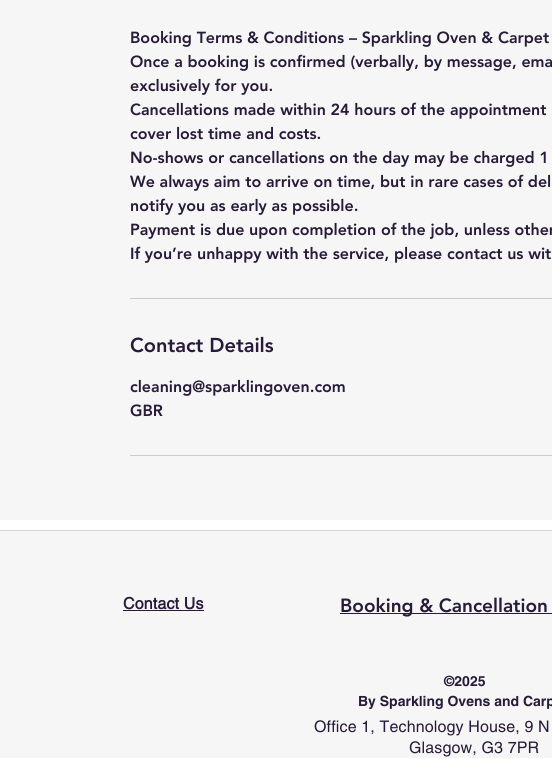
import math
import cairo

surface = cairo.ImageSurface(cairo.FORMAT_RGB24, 552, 759)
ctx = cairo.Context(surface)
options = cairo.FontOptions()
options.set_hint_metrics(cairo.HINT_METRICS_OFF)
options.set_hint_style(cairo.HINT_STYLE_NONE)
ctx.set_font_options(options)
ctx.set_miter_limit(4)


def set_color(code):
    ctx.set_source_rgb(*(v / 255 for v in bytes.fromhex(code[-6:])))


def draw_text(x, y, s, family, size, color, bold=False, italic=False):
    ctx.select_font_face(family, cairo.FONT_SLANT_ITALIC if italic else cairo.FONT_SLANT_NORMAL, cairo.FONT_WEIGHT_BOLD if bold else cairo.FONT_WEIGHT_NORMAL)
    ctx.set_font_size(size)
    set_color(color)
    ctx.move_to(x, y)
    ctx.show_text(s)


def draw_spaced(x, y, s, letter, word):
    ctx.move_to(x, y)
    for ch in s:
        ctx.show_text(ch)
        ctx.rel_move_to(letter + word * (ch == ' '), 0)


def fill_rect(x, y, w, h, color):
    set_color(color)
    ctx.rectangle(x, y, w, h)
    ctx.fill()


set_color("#ffffff")
ctx.paint()
fill_rect(0, 0, 552, 520, "#f6f6f6")
draw_text(130, 43, "Booking Terms & Conditions – Sparkling Oven & Carpet", "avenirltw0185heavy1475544 Black", 16, "#281a39")
draw_text(130, 67, "Once a booking is confirmed (verbally, by message, ema", "avenirltw0185heavy1475544 Black", 16, "#281a39")
draw_text(130, 91, "exclusively for you.", "avenirltw0185heavy1475544 Black", 16, "#281a39")
draw_text(130, 115, "Cancellations made within 24 hours of the appointment", "avenirltw0185heavy1475544 Black", 16, "#281a39")
draw_text(130, 139, "cover lost time and costs.", "avenirltw0185heavy1475544 Black", 16, "#281a39")
draw_text(130, 163, "No-shows or cancellations on the day may be charged 1", "avenirltw0185heavy1475544 Black", 16, "#281a39")
draw_text(130, 187, "We always aim to arrive on time, but in rare cases of del", "avenirltw0185heavy1475544 Black", 16, "#281a39")
draw_text(130, 211, "notify you as early as possible.", "avenirltw0185heavy1475544 Black", 16, "#281a39")
draw_text(130, 235, "Payment is due upon completion of the job, unless other", "avenirltw0185heavy1475544 Black", 16, "#281a39")
draw_text(130, 259, "If you’re unhappy with the service, please contact us wit", "avenirltw0185heavy1475544 Black", 16, "#281a39")
fill_rect(130, 298, 422, 1, "#cdcad0")
draw_text(130, 352, "Contact Details", "avenirltw0185heavy1475544 Black", 20, "#281a39")
draw_text(130, 392, "cleaning@sparklingoven.com", "avenirltw0185heavy1475544 Black", 16, "#281a39")
draw_text(130, 416, "GBR", "avenirltw0185heavy1475544 Black", 16, "#281a39")
fill_rect(130, 455, 422, 1, "#cdcad0")
fill_rect(0, 531, 552, 227, "#f6f6f6")
fill_rect(0, 530, 552, 1, "#d7d5da")
ctx.select_font_face("helvetica", cairo.FONT_SLANT_NORMAL, cairo.FONT_WEIGHT_BOLD)
set_color("#281a39")
draw_spaced(123, 609, "Contact Us", 0.15, 0)
fill_rect(123, 610, 81, 1, "#281a39")
fill_rect(340, 613, 212, 1, "#281a39")
draw_text(340, 612, "Booking & Cancellation", "avenirltw0185heavy1475544 Black", 19, "#281a39")
draw_text(444, 686, "©2025", "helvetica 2", 14, "#281a39", bold=True)
draw_text(358, 706, "By Sparkling Ovens and Carp", "helvetica 2", 14, "#281a39", bold=True)
ctx.select_font_face("helvetica")
ctx.set_font_size(16)
draw_spaced(314, 732, "Office 1, Technology House, 9 N", 0.15, 0)
draw_spaced(409, 753, "Glasgow, G3 7PR", 0.15, 0)
surface.write_to_png("output.png")
